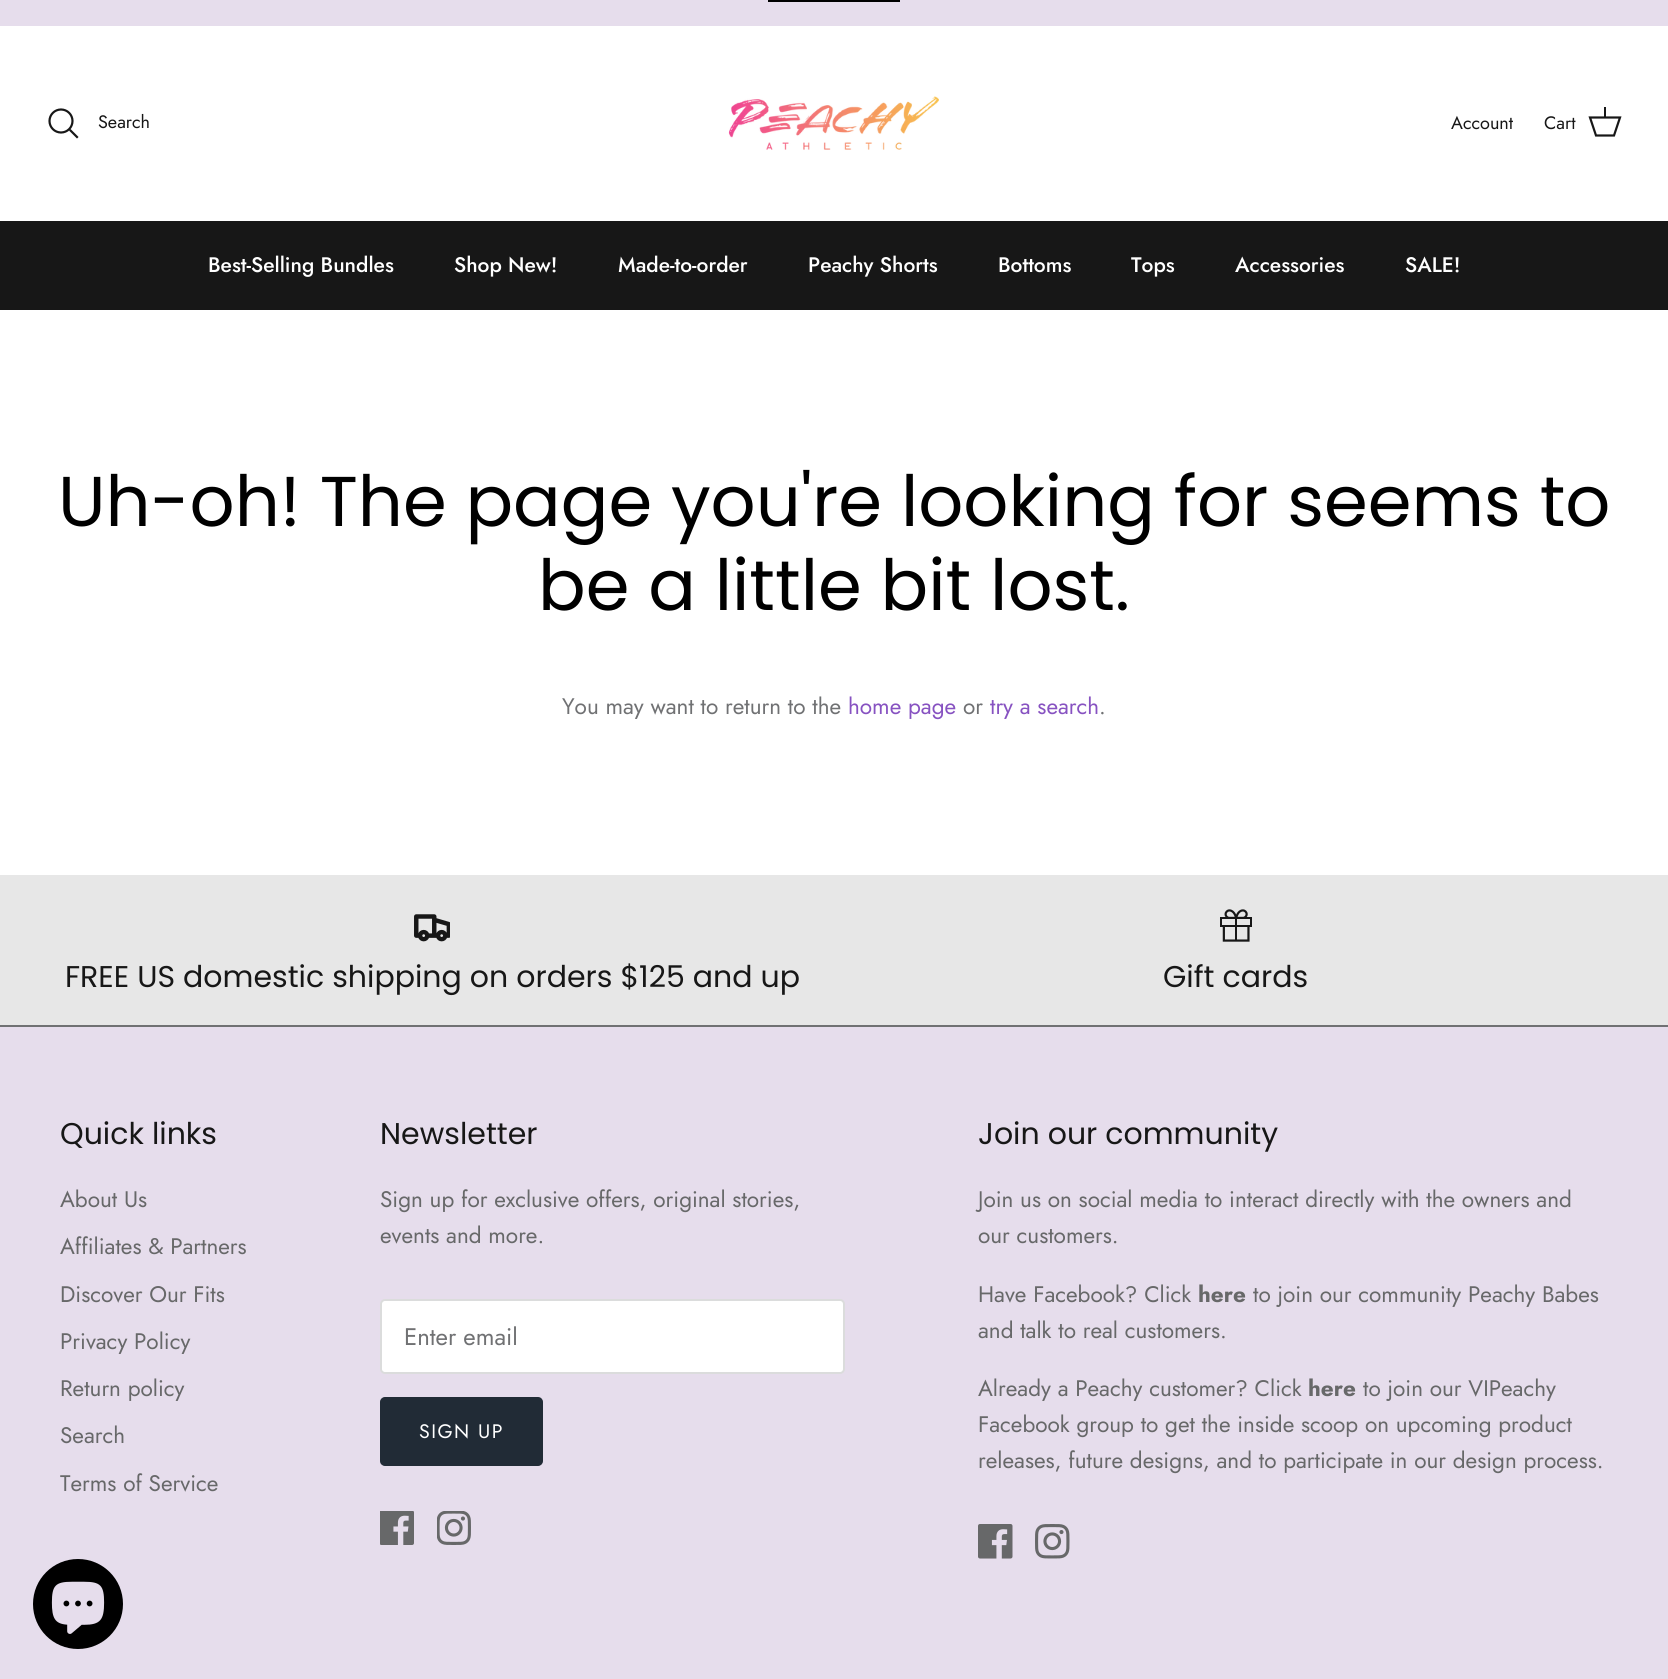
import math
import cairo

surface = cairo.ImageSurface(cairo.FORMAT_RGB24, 1668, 1679)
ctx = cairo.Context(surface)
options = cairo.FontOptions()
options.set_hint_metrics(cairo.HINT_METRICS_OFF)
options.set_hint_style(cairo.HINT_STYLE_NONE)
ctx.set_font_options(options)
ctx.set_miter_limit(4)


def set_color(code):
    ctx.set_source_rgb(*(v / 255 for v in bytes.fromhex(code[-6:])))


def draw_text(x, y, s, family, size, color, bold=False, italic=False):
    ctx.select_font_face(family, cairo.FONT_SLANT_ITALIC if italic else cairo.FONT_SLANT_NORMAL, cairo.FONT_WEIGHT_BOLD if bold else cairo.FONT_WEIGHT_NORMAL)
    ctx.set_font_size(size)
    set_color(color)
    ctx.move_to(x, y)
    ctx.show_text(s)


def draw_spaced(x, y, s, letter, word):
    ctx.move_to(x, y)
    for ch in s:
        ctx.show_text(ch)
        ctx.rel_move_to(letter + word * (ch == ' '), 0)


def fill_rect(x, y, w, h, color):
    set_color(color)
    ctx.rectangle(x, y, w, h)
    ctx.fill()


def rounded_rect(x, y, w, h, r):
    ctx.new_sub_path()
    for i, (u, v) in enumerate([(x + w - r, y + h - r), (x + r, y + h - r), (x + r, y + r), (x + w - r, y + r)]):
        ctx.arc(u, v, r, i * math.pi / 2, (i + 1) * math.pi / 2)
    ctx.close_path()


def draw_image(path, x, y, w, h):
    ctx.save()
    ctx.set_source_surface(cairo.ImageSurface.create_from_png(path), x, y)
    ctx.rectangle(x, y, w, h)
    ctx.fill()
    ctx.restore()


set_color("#ffffff")
ctx.paint()
fill_rect(0, 0, 1668, 26, "#e6ddec")
fill_rect(768, 0, 132, 2, "#000000")
ctx.arc(61, 121, 11.5, 0, 2 * math.pi)
set_color("#171717")
ctx.set_line_width(2.2)
ctx.stroke()
ctx.new_path()
ctx.move_to(70.5, 130.5)
ctx.line_to(77, 137)
ctx.set_line_cap(cairo.LINE_CAP_SQUARE)
ctx.stroke()
draw_text(98, 128, "Search", "Jost", 18, "#171717")
draw_image("assets/img1.png", 728, 96, 211, 54)
draw_text(1451, 129, "Account", "Jost", 18, "#171717")
draw_text(1544, 129, "Cart", "Jost", 18, "#171717")
ctx.new_path()
ctx.move_to(1590, 117.5)
ctx.line_to(1620, 117.5)
ctx.line_to(1614, 135.5)
ctx.line_to(1596, 135.5)
ctx.close_path()
ctx.set_line_cap(cairo.LINE_CAP_BUTT)
ctx.stroke()
fill_rect(1604, 107, 2, 11, "#171717")
fill_rect(0, 221, 1668, 89, "#171717")
draw_text(208, 272, "Best-Selling Bundles", "Jost Medium", 21, "#ffffff")
draw_text(454, 272, "Shop New!", "Jost Medium", 21, "#ffffff")
draw_text(618, 272, "Made-to-order", "Jost Medium", 21, "#ffffff")
draw_text(808, 272, "Peachy Shorts", "Jost Medium", 21, "#ffffff")
draw_text(998, 272, "Bottoms", "Jost Medium", 21, "#ffffff")
draw_text(1131, 272, "Tops", "Jost Medium", 21, "#ffffff")
draw_text(1235, 272, "Accessories", "Jost Medium", 21, "#ffffff")
draw_text(1405, 272, "SALE!", "Jost Medium", 21, "#ffffff")
draw_text(58, 526, "Uh-oh! The page you're looking for seems to", "Poppins", 70.5, "#000000")
draw_text(538, 610, "be a little bit lost.", "Poppins", 70.5, "#000000")
draw_text(562, 714, "You may want to return to the", "Jost", 22.5, "#707173")
draw_text(848, 714, "home page", "Jost", 22.5, "#8752c1")
draw_text(963, 714, "or", "Jost", 22.5, "#707173")
draw_text(990, 714, "try a search", "Jost", 22.5, "#8752c1")
draw_text(1099, 714, ".", "Jost", 22.5, "#707173")
fill_rect(0, 1027, 1668, 652, "#e6ddec")
fill_rect(0, 875, 1668, 150, "#e7e7e7")
draw_image("assets/img2.png", 414, 914, 36, 28)
draw_text(65, 987, "FREE US domestic shipping on orders $125 and up", "Poppins", 30, "#171717")
draw_image("assets/img3.png", 1220, 909, 32, 33)
draw_text(1163, 987, "Gift cards", "Poppins", 30, "#171717")
fill_rect(0, 1025, 1668, 2, "#707173")
draw_text(60, 1144, "Quick links", "Poppins", 30, "#171717")
draw_text(60, 1207, "About Us", "Jost", 22.5, "#676869")
draw_text(60, 1254, "Affiliates & Partners", "Jost", 22.5, "#676869")
draw_text(60, 1302, "Discover Our Fits", "Jost", 22.5, "#676869")
draw_text(60, 1349, "Privacy Policy", "Jost", 22.5, "#676869")
draw_text(60, 1396, "Return policy", "Jost", 22.5, "#676869")
draw_text(60, 1443, "Search", "Jost", 22.5, "#676869")
draw_text(60, 1491, "Terms of Service", "Jost", 22.5, "#676869")
draw_text(380, 1144, "Newsletter", "Poppins", 30, "#171717")
draw_text(380, 1207, "Sign up for exclusive offers, original stories,", "Jost", 22.5, "#676869")
draw_text(380, 1243, "events and more.", "Jost", 22.5, "#676869")
set_color("#ffffff")
rounded_rect(381, 1300, 463, 73, 4)
ctx.fill_preserve()
set_color("#dbdcdc")
ctx.set_line_width(2)
ctx.stroke()
draw_text(404, 1345, "Enter email", "Jost", 24, "#707173")
set_color("#212b36")
rounded_rect(381, 1398, 161, 67, 4)
ctx.fill_preserve()
ctx.stroke()
ctx.set_font_size(19.5)
set_color("#ffffff")
draw_spaced(419, 1438, "SIGN UP", 1.5, 0)
draw_image("assets/img4.png", 380, 1511, 34, 34)
draw_image("assets/img5.png", 437, 1511, 34, 34)
draw_text(978, 1144, "Join our community", "Poppins", 30, "#171717")
draw_text(978, 1207, "Join us on social media to interact directly with the owners and", "Jost", 22.5, "#676869")
draw_text(978, 1243, "our customers.", "Jost", 22.5, "#676869")
draw_text(978, 1302, "Have Facebook? Click", "Jost", 22.5, "#676869")
draw_text(1198, 1302, "here", "Jost", 22.5, "#676869", bold=True)
draw_text(1253, 1302, "to join our community Peachy Babes", "Jost", 22.5, "#676869")
draw_text(978, 1338, "and talk to real customers.", "Jost", 22.5, "#676869")
draw_text(978, 1396, "Already a Peachy customer? Click", "Jost", 22.5, "#676869")
draw_text(1308, 1396, "here", "Jost", 22.5, "#676869", bold=True)
draw_text(1363, 1396, "to join our VIPeachy", "Jost", 22.5, "#676869")
draw_text(978, 1432, "Facebook group to get the inside scoop on upcoming product", "Jost", 22.5, "#676869")
draw_text(978, 1468, "releases, future designs, and to participate in our design process.", "Jost", 22.5, "#676869")
draw_image("assets/img6.png", 978, 1524, 35, 35)
draw_image("assets/img7.png", 1035, 1524, 35, 35)
set_color("#000000")
ctx.arc(78, 1604, 45, 0, 2 * math.pi)
ctx.fill()
draw_image("assets/img8.png", 51, 1581, 54, 53)
surface.write_to_png("output.png")
